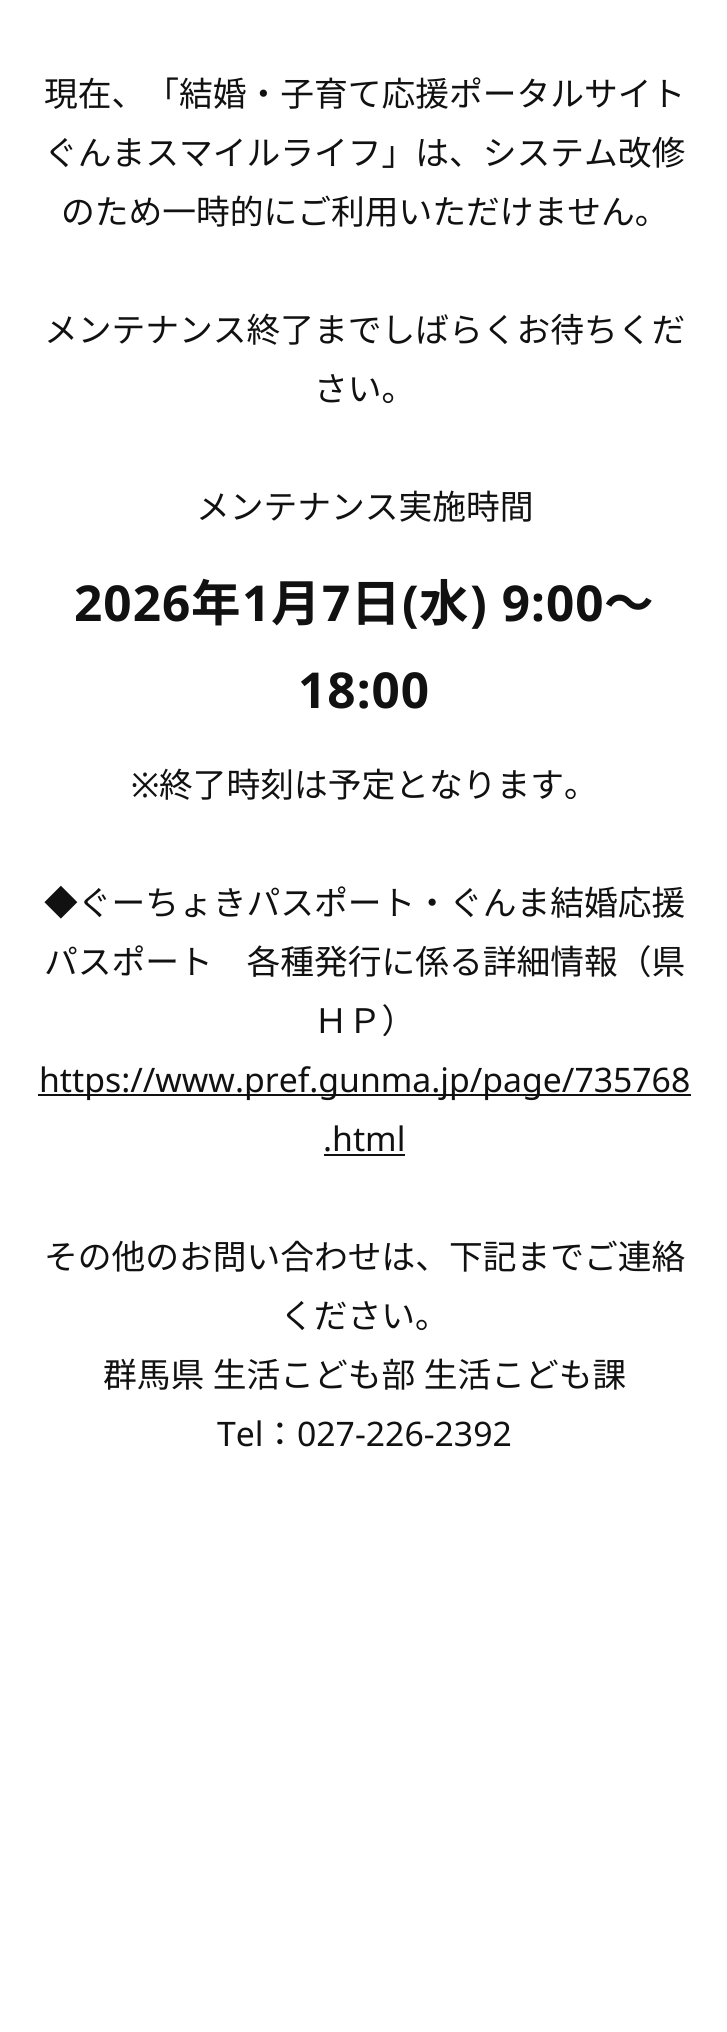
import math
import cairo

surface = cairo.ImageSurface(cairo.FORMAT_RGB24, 727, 2032)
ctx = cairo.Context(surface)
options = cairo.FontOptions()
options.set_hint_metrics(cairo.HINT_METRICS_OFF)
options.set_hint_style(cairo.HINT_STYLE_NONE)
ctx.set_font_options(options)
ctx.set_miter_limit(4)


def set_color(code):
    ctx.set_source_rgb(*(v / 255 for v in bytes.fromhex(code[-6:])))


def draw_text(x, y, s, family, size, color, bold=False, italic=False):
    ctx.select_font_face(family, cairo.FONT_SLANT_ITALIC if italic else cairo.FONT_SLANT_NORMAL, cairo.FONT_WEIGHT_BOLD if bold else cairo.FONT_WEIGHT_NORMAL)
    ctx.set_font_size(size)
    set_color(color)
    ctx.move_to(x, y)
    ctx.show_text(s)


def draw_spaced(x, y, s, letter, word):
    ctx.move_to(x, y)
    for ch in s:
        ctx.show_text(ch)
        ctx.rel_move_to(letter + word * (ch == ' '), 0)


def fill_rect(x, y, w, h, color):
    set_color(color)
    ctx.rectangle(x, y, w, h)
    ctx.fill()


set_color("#ffffff")
ctx.paint()
draw_text(44, 106, "現在、「結婚・子育て応援ポータルサイト", "Noto Sans JP", 33.75, "#111111")
draw_text(44, 165, "ぐんまスマイルライフ」は、システム改修", "Noto Sans JP", 33.75, "#111111")
draw_text(61, 224, "のため一時的にご利用いただけません。", "Noto Sans JP", 33.75, "#111111")
draw_text(44, 342, "メンテナンス終了までしばらくお待ちくだ", "Noto Sans JP", 33.75, "#111111")
draw_text(314, 401, "さい。", "Noto Sans JP", 33.75, "#111111")
draw_text(196, 519, "メンテナンス実施時間", "Noto Sans JP", 33.75, "#111111")
ctx.select_font_face("Noto Sans", cairo.FONT_SLANT_NORMAL, cairo.FONT_WEIGHT_BOLD)
ctx.set_font_size(49.5)
draw_spaced(74, 621, "2026", 1, 0)
ctx.select_font_face("Noto Sans JP", cairo.FONT_SLANT_NORMAL, cairo.FONT_WEIGHT_BOLD)
draw_spaced(191, 621, "年", 1, 0)
ctx.select_font_face("Noto Sans", cairo.FONT_SLANT_NORMAL, cairo.FONT_WEIGHT_BOLD)
draw_spaced(242, 621, "1", 1, 0)
ctx.select_font_face("Noto Sans JP", cairo.FONT_SLANT_NORMAL, cairo.FONT_WEIGHT_BOLD)
draw_spaced(271, 621, "月", 1, 0)
ctx.select_font_face("Noto Sans", cairo.FONT_SLANT_NORMAL, cairo.FONT_WEIGHT_BOLD)
draw_spaced(322, 621, "7", 1, 0)
ctx.select_font_face("Noto Sans JP", cairo.FONT_SLANT_NORMAL, cairo.FONT_WEIGHT_BOLD)
draw_spaced(351, 621, "日", 1, 0)
ctx.select_font_face("Noto Sans", cairo.FONT_SLANT_NORMAL, cairo.FONT_WEIGHT_BOLD)
draw_spaced(402, 621, "(", 1, 0)
ctx.select_font_face("Noto Sans JP", cairo.FONT_SLANT_NORMAL, cairo.FONT_WEIGHT_BOLD)
draw_spaced(419, 621, "水", 1, 0)
ctx.select_font_face("Noto Sans", cairo.FONT_SLANT_NORMAL, cairo.FONT_WEIGHT_BOLD)
draw_spaced(470, 621, ") 9:00", 1, 0)
ctx.select_font_face("Noto Sans JP", cairo.FONT_SLANT_NORMAL, cairo.FONT_WEIGHT_BOLD)
draw_spaced(604, 621, "～", 1, 0)
ctx.select_font_face("Noto Sans", cairo.FONT_SLANT_NORMAL, cairo.FONT_WEIGHT_BOLD)
draw_spaced(298, 708, "18:00", 1, 0)
draw_text(131, 797, "※", "Noto Sans", 33.75, "#111111")
draw_text(159, 797, "終了時刻は予定となります。", "Noto Sans JP", 33.75, "#111111")
draw_text(44, 915, "◆ぐーちょきパスポート・ぐんま結婚応援", "Noto Sans JP", 33.75, "#111111")
draw_text(44, 974, "パスポート　各種発行に係る詳細情報（県", "Noto Sans JP", 33.75, "#111111")
draw_text(314, 1033, "ＨＰ）", "Noto Sans JP", 33.75, "#111111")
fill_rect(38, 1094, 653, 2, "#111111")
draw_text(39, 1092, "https://www.pref.gunma.jp/page/735768", "Noto Sans", 33.75, "#111111")
draw_text(323, 1151, ".html", "Noto Sans", 33.75, "#111111")
fill_rect(324, 1154, 81, 2, "#111111")
draw_text(44, 1269, "その他のお問い合わせは、下記までご連絡", "Noto Sans JP", 33.75, "#111111")
draw_text(280, 1328, "ください。", "Noto Sans JP", 33.75, "#111111")
draw_spaced(103, 1387, "群馬県 生活こども部 生活こども課", 0, 1)
draw_text(217, 1446, "Tel", "Noto Sans", 33.75, "#111111")
draw_text(263, 1446, "：", "Noto Sans JP", 33.75, "#111111")
draw_text(297, 1446, "027-226-2392", "Noto Sans", 33.75, "#111111")
surface.write_to_png("output.png")
